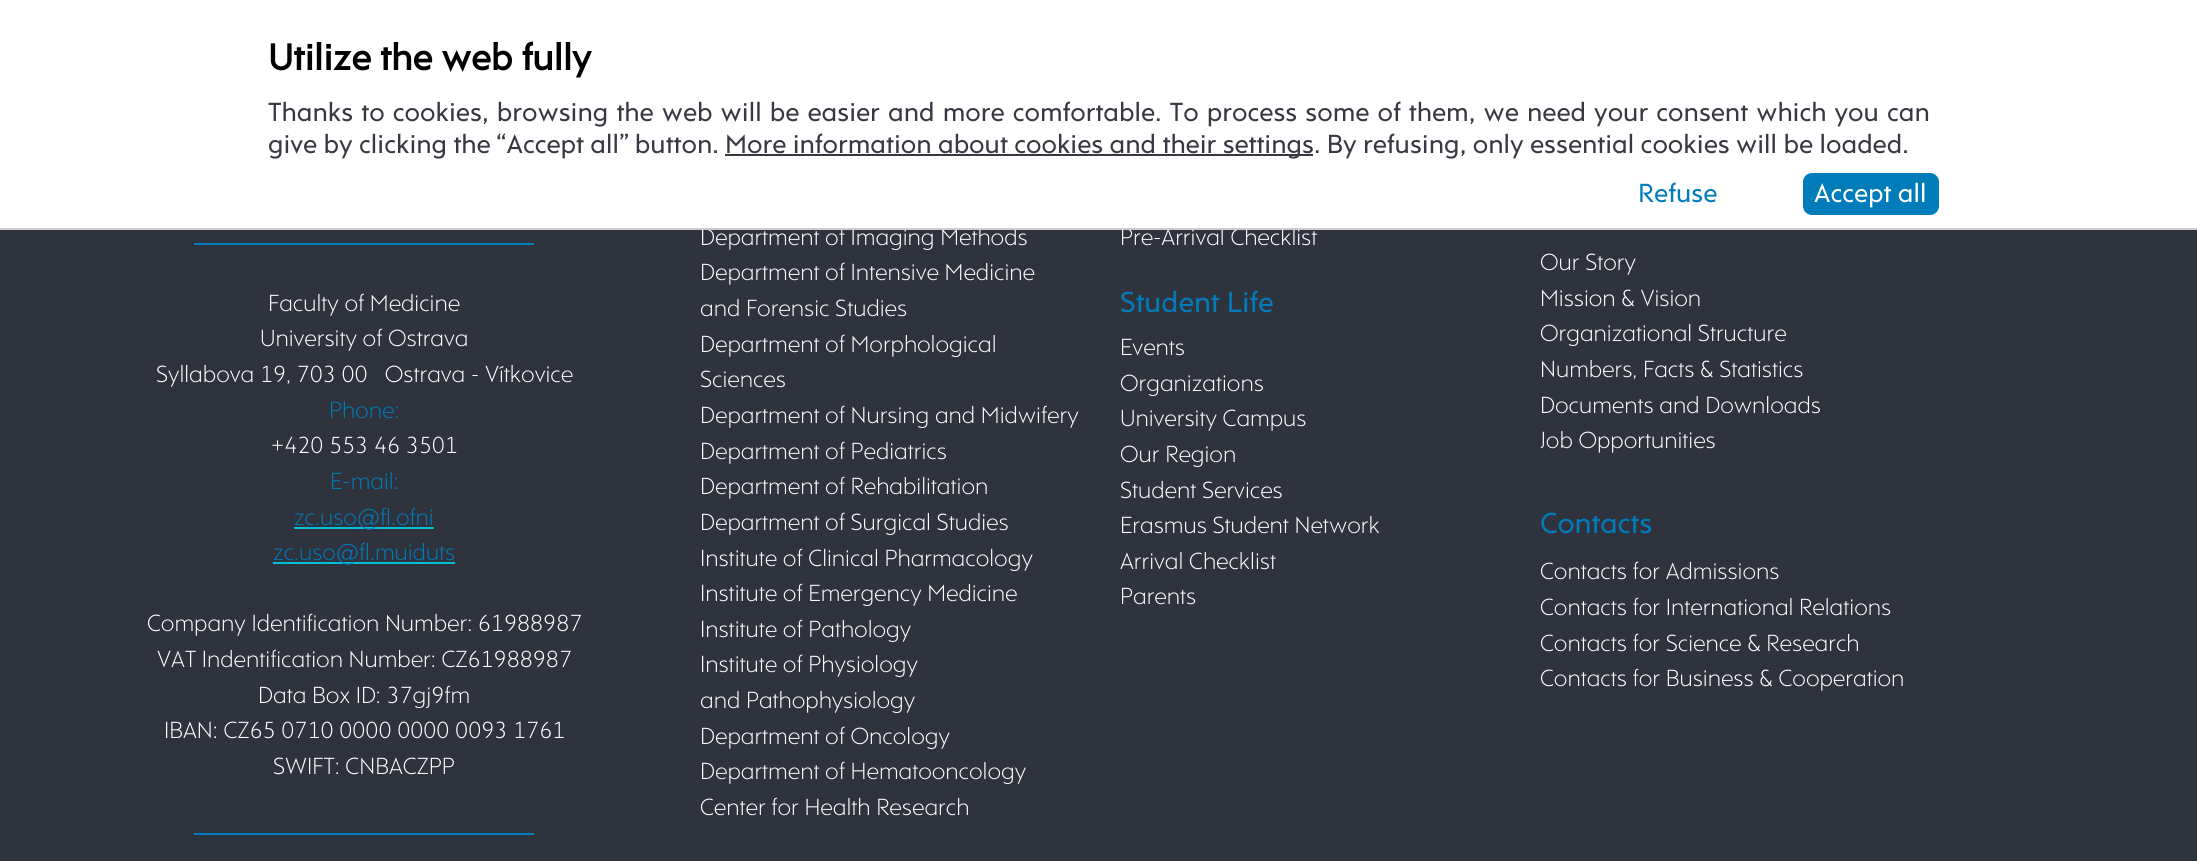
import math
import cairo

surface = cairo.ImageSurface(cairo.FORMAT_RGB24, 2197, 861)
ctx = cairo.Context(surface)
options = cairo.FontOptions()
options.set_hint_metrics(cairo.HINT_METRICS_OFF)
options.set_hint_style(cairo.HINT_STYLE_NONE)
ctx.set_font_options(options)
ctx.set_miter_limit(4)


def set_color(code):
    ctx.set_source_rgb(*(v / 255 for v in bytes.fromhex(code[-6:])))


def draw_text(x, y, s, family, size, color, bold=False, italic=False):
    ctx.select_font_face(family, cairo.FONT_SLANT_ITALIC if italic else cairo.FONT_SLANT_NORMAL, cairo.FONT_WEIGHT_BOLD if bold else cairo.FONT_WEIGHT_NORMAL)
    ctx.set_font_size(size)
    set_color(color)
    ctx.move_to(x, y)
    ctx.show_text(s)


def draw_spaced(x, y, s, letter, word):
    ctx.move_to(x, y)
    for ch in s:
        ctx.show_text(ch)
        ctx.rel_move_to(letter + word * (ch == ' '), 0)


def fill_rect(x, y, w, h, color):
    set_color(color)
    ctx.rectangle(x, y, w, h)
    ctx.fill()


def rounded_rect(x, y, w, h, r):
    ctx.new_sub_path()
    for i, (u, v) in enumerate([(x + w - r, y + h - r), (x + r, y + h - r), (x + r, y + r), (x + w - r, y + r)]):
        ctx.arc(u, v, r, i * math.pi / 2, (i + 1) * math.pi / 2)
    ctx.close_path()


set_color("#2f333e")
ctx.paint()
fill_rect(0, 0, 2197, 228, "#ffffff")
draw_text(700, 245, "Department of Imaging Methods", "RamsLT", 23.75, "#ffffff")
draw_text(1120, 245, "Pre-Arrival Checklist", "RamsLT", 23.75, "#ffffff")
fill_rect(0, 228, 2197, 2, "#cccccc")
draw_text(268, 70, "Utilize the web fully", "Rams", 37.5, "#000000", bold=True)
ctx.select_font_face("Rams")
ctx.set_font_size(26.7)
set_color("#373841")
draw_spaced(268, 121, "Thanks to cookies, browsing the web will be easier and more comfortable. To process some of them, we need your consent which you can", 0, 1.75)
draw_text(268, 153, "give by clicking the “Accept all” button.", "Rams", 26.7, "#373841")
fill_rect(725, 154, 588, 2, "#373841")
draw_text(725, 153, "More information about cookies and their settings. By refusing, only essential cookies will be loaded.", "Rams", 26.7, "#373841")
draw_text(1638, 202, "Refuse", "Rams", 26.7, "#007cba")
rounded_rect(1803, 173, 136, 42, 9)
ctx.fill()
draw_text(1814, 202, "Accept all", "Rams", 26.7, "#ffffff")
fill_rect(194, 243, 340, 2, "#007cba")
draw_text(268, 311, "Faculty of Medicine", "RamsLT", 23.75, "#ffffff")
draw_text(260, 346, "University of Ostrava", "RamsLT", 23.75, "#ffffff")
draw_text(156, 382, "Syllabova 19, 703 00   Ostrava - Vítkovice", "RamsLT", 23.75, "#ffffff")
draw_text(329, 418, "Phone:", "RamsLT", 23.75, "#007cba")
draw_text(271, 453, "+420 553 46 3501", "RamsLT", 23.75, "#ffffff")
draw_text(330, 489, "E-mail:", "RamsLT", 23.75, "#007cba")
fill_rect(294, 527, 140, 2, "#00bfd8")
draw_text(294, 525, "zc.uso@fl.ofni", "RamsLT", 23.75, "#007cba")
fill_rect(273, 562, 182, 2, "#00bfd8")
draw_text(273, 560, "zc.uso@fl.muiduts", "RamsLT", 23.75, "#007cba")
draw_text(147, 631, "Company Identification Number: 61988987", "RamsLT", 23.75, "#ffffff")
draw_text(157, 667, "VAT Indentification Number: CZ61988987", "RamsLT", 23.75, "#ffffff")
draw_text(258, 703, "Data Box ID: 37gj9fm", "RamsLT", 23.75, "#ffffff")
draw_text(164, 738, "IBAN: CZ65 0710 0000 0000 0093 1761", "RamsLT", 23.75, "#ffffff")
draw_text(273, 774, "SWIFT: CNBACZPP", "RamsLT", 23.75, "#ffffff")
fill_rect(194, 833, 340, 2, "#007cba")
draw_text(700, 280, "Department of Intensive Medicine", "RamsLT", 23.75, "#ffffff")
draw_text(700, 316, "and Forensic Studies", "RamsLT", 23.75, "#ffffff")
draw_text(700, 352, "Department of Morphological", "RamsLT", 23.75, "#ffffff")
draw_text(700, 387, "Sciences", "RamsLT", 23.75, "#ffffff")
draw_text(700, 423, "Department of Nursing and Midwifery", "RamsLT", 23.75, "#ffffff")
draw_text(700, 459, "Department of Pediatrics", "RamsLT", 23.75, "#ffffff")
draw_text(700, 494, "Department of Rehabilitation", "RamsLT", 23.75, "#ffffff")
draw_text(700, 530, "Department of Surgical Studies", "RamsLT", 23.75, "#ffffff")
draw_text(700, 566, "Institute of Clinical Pharmacology", "RamsLT", 23.75, "#ffffff")
draw_text(700, 601, "Institute of Emergency Medicine", "RamsLT", 23.75, "#ffffff")
draw_text(700, 637, "Institute of Pathology", "RamsLT", 23.75, "#ffffff")
draw_text(700, 672, "Institute of Physiology", "RamsLT", 23.75, "#ffffff")
draw_text(700, 708, "and Pathophysiology", "RamsLT", 23.75, "#ffffff")
draw_text(700, 744, "Department of Oncology", "RamsLT", 23.75, "#ffffff")
draw_text(700, 779, "Department of Hematooncology", "RamsLT", 23.75, "#ffffff")
draw_text(700, 815, "Center for Health Research", "RamsLT", 23.75, "#ffffff")
draw_text(1120, 312, "Student Life", "Rams", 29.5, "#007cba")
draw_text(1120, 355, "Events", "RamsLT", 23.75, "#ffffff")
draw_text(1120, 391, "Organizations", "RamsLT", 23.75, "#ffffff")
draw_text(1120, 426, "University Campus", "RamsLT", 23.75, "#ffffff")
draw_text(1120, 462, "Our Region", "RamsLT", 23.75, "#ffffff")
draw_text(1120, 498, "Student Services", "RamsLT", 23.75, "#ffffff")
draw_text(1120, 533, "Erasmus Student Network", "RamsLT", 23.75, "#ffffff")
draw_text(1120, 569, "Arrival Checklist", "RamsLT", 23.75, "#ffffff")
draw_text(1120, 604, "Parents", "RamsLT", 23.75, "#ffffff")
draw_text(1540, 270, "Our Story", "RamsLT", 23.75, "#ffffff")
draw_text(1540, 306, "Mission & Vision", "RamsLT", 23.75, "#ffffff")
draw_text(1540, 341, "Organizational Structure", "RamsLT", 23.75, "#ffffff")
draw_text(1540, 377, "Numbers, Facts & Statistics", "RamsLT", 23.75, "#ffffff")
draw_text(1540, 413, "Documents and Downloads", "RamsLT", 23.75, "#ffffff")
draw_text(1540, 448, "Job Opportunities", "RamsLT", 23.75, "#ffffff")
draw_text(1540, 533, "Contacts", "Rams", 29.5, "#007cba")
draw_text(1540, 579, "Contacts for Admissions", "RamsLT", 23.75, "#ffffff")
draw_text(1540, 615, "Contacts for International Relations", "RamsLT", 23.75, "#ffffff")
draw_text(1540, 651, "Contacts for Science & Research", "RamsLT", 23.75, "#ffffff")
draw_text(1540, 686, "Contacts for Business & Cooperation", "RamsLT", 23.75, "#ffffff")
surface.write_to_png("output.png")
